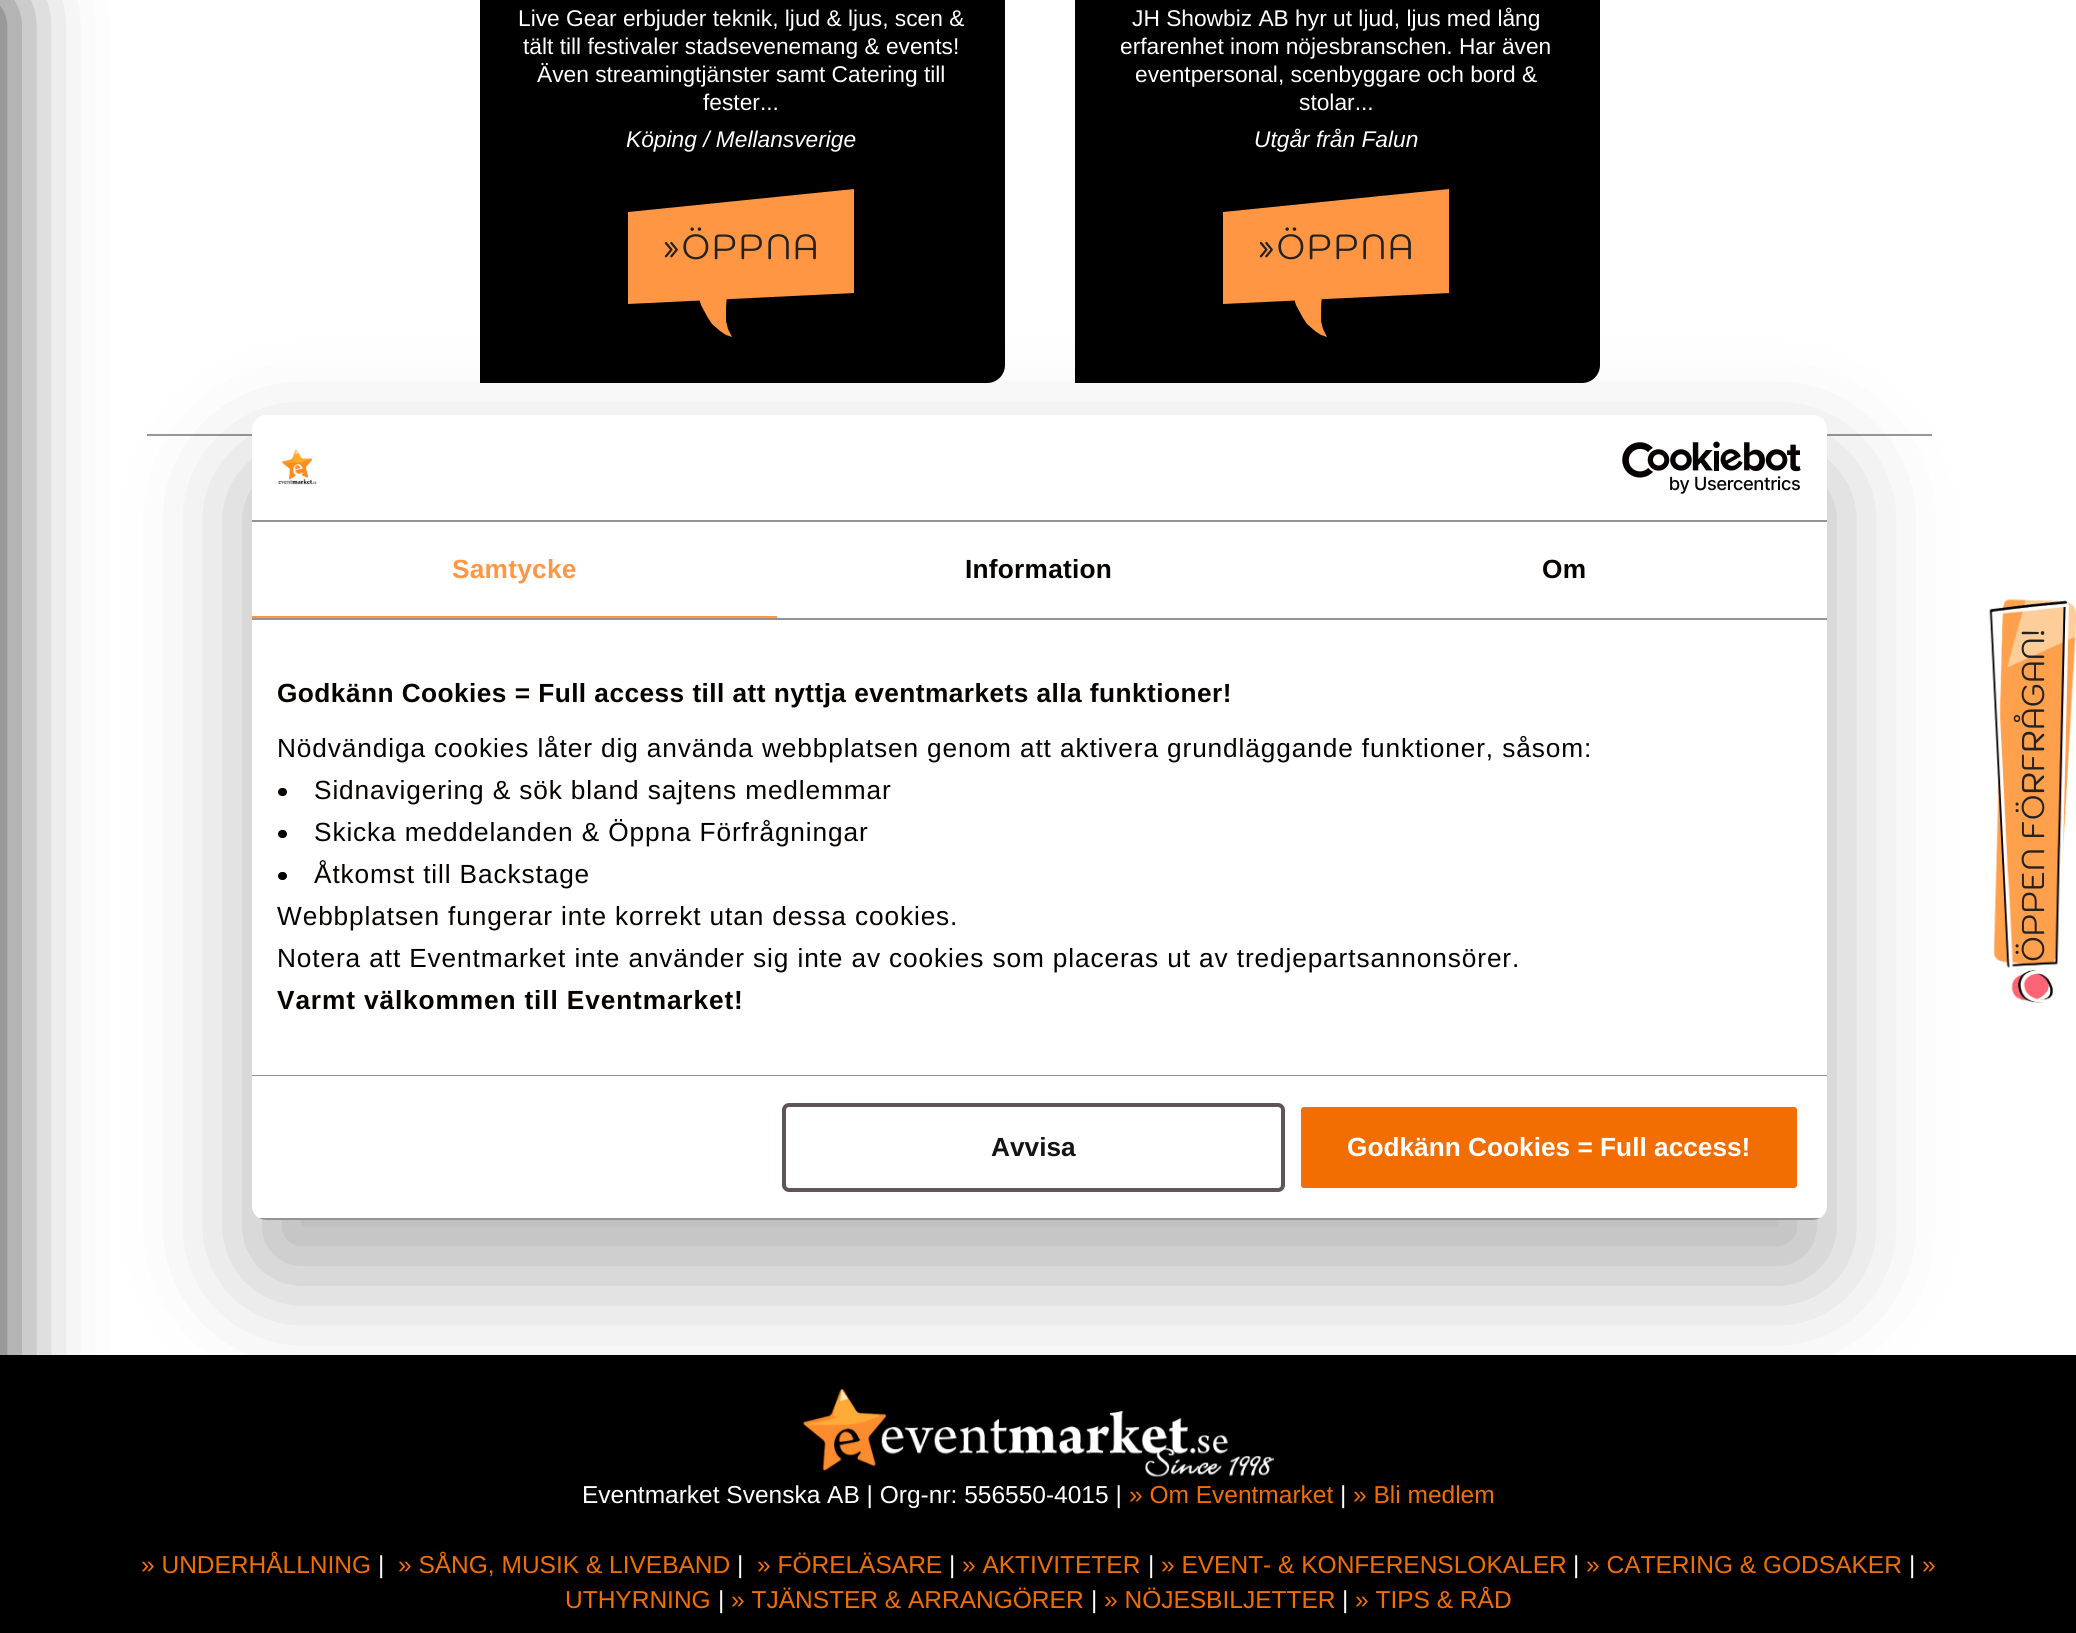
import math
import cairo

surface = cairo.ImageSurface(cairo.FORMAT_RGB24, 2076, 1633)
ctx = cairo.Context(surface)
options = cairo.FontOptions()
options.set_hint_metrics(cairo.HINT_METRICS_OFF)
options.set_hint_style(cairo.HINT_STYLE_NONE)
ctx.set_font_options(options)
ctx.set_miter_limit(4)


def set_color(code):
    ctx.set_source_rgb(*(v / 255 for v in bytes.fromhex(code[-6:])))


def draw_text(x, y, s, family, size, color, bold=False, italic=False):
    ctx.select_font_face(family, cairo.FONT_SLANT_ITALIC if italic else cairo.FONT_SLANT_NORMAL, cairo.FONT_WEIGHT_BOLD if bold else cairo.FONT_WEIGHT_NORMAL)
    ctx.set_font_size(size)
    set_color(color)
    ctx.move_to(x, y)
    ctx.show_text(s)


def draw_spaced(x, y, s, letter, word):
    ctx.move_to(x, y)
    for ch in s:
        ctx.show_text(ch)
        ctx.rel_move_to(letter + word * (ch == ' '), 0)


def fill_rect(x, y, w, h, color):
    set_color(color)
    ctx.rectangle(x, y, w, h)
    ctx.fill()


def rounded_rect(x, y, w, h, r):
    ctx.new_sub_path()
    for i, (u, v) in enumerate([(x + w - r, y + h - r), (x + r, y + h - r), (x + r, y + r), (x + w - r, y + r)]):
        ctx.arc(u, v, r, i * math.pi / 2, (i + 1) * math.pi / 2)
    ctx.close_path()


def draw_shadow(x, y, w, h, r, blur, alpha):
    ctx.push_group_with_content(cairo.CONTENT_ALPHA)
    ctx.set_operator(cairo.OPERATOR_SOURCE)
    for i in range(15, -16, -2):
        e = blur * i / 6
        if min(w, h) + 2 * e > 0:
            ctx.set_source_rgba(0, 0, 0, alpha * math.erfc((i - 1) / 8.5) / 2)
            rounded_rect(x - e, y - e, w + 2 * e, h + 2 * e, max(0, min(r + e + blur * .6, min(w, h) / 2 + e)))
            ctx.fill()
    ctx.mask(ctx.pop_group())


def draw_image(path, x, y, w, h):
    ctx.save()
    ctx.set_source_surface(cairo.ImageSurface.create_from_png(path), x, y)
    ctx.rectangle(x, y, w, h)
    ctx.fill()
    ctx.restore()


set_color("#ffffff")
ctx.paint()
set_color("#000000")
ctx.new_path()
ctx.move_to(498, -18)
ctx.line_to(1005, -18)
ctx.line_to(1005, 365)
ctx.curve_to(1005, 375, 997, 383, 987, 383)
ctx.line_to(480, 383)
ctx.line_to(480, 0)
ctx.curve_to(480, -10, 488, -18, 498, -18)
ctx.close_path()
ctx.fill()
draw_text(518, 26, "Live Gear erbjuder teknik, ljud & ljus, scen &", "Liberation Sans", 22.75, "#ffffff")
draw_text(523, 54, "tält till festivaler stadsevenemang & events!", "Liberation Sans", 22.75, "#ffffff")
draw_text(537, 82, "Även streamingtjänster samt Catering till", "Liberation Sans", 22.75, "#ffffff")
draw_text(703, 110, "fester...", "Liberation Sans", 22.75, "#ffffff")
draw_text(626, 147, "Köping / Mellansverige", "Liberation Sans", 22.75, "#ffffff", italic=True)
set_color("#ff9644")
ctx.new_path()
ctx.move_to(628, 212)
ctx.line_to(854, 189)
ctx.line_to(854, 293)
ctx.line_to(628, 304)
ctx.close_path()
ctx.fill()
ctx.select_font_face("Kodchasan")
ctx.set_font_size(35)
set_color("#222222")
draw_spaced(663, 259, "»ÖPPNA", 1.75, 0)
set_color("#ff9644")
ctx.new_path()
ctx.move_to(698, 294)
ctx.line_to(698, 295)
ctx.line_to(701, 305)
ctx.line_to(708, 318)
ctx.line_to(712, 324)
ctx.line_to(720, 331)
ctx.line_to(726, 335)
ctx.line_to(732, 337)
ctx.line_to(728, 329)
ctx.line_to(726, 321)
ctx.line_to(726, 308)
ctx.line_to(727, 294)
ctx.close_path()
ctx.fill()
set_color("#000000")
ctx.new_path()
ctx.move_to(1093, -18)
ctx.line_to(1600, -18)
ctx.line_to(1600, 365)
ctx.curve_to(1600, 375, 1592, 383, 1582, 383)
ctx.line_to(1075, 383)
ctx.line_to(1075, 0)
ctx.curve_to(1075, -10, 1083, -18, 1093, -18)
ctx.close_path()
ctx.fill()
draw_text(1132, 26, "JH Showbiz AB hyr ut ljud, ljus med lång", "Liberation Sans", 22.75, "#ffffff")
draw_text(1120, 54, "erfarenhet inom nöjesbranschen. Har även", "Liberation Sans", 22.75, "#ffffff")
draw_text(1135, 82, "eventpersonal, scenbyggare och bord &", "Liberation Sans", 22.75, "#ffffff")
draw_text(1299, 110, "stolar...", "Liberation Sans", 22.75, "#ffffff")
draw_text(1254, 147, "Utgår från Falun", "Liberation Sans", 22.75, "#ffffff", italic=True)
set_color("#ff9644")
ctx.new_path()
ctx.move_to(1223, 212)
ctx.line_to(1449, 189)
ctx.line_to(1449, 293)
ctx.line_to(1223, 304)
ctx.close_path()
ctx.fill()
ctx.select_font_face("Kodchasan")
ctx.set_font_size(35)
set_color("#222222")
draw_spaced(1258, 259, "»ÖPPNA", 1.75, 0)
set_color("#ff9644")
ctx.new_path()
ctx.move_to(1293, 294)
ctx.line_to(1293, 295)
ctx.line_to(1296, 305)
ctx.line_to(1303, 318)
ctx.line_to(1307, 324)
ctx.line_to(1315, 331)
ctx.line_to(1321, 335)
ctx.line_to(1327, 337)
ctx.line_to(1323, 329)
ctx.line_to(1321, 321)
ctx.line_to(1321, 308)
ctx.line_to(1322, 294)
ctx.close_path()
ctx.fill()
fill_rect(147, 434, 1785, 2, "#999999")
fill_rect(0, 1355, 2076, 278, "#000000")
set_color("#000000")
draw_shadow(-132, 0, 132, 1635, 0, 44, 0.8)
draw_image("assets/img1.png", 1989, 599, 87, 404)
ctx.save()
ctx.translate(2044, 962)
ctx.rotate(-90 * math.pi / 180)
draw_text(0, 0, "ÖPPEN FÖRFRÅGAN!", "Kodchasan", 31.5, "#222222")
ctx.restore()
draw_image("assets/img4.png", 803, 1389, 471, 88)
set_color("#000000")
draw_shadow(252, 471, 1575, 805, 14, 59.5, 0.3)
set_color("#ffffff")
rounded_rect(252, 415, 1575, 805, 14)
ctx.fill()
fill_rect(252, 520, 1575, 2, "#949494")
draw_image("assets/img2.png", 278, 449, 39, 36)
draw_image("assets/img3.png", 1622, 441, 179, 53)
fill_rect(252, 618, 1575, 2, "#949494")
fill_rect(252, 616, 525, 2, "#ff9644")
ctx.select_font_face("Liberation Sans", cairo.FONT_SLANT_NORMAL, cairo.FONT_WEIGHT_BOLD)
ctx.set_font_size(26.25)
draw_spaced(452, 578, "Samtycke", 0.25, 0)
set_color("#050200")
draw_spaced(965, 578, "Information", 0.25, 0)
draw_spaced(1542, 578, "Om", 0.25, 0)
fill_rect(252, 1075, 1575, 1, "#949494")
set_color("#050200")
draw_spaced(277, 702, "Godkänn Cookies = Full access till att nyttja eventmarkets alla funktioner!", 0.45, 0)
ctx.select_font_face("Liberation Sans")
draw_spaced(277, 757, "Nödvändiga cookies låter dig använda webbplatsen genom att aktivera grundläggande funktioner, såsom:", 0.88, 0)
rounded_rect(278, 788, 9, 8, 4)
ctx.fill()
draw_spaced(314, 799, "Sidnavigering & sök bland sajtens medlemmar", 0.88, 0)
rounded_rect(278, 830, 9, 8, 4)
ctx.fill()
draw_spaced(314, 841, "Skicka meddelanden & Öppna Förfrågningar", 0.88, 0)
rounded_rect(278, 872, 9, 8, 4)
ctx.fill()
draw_spaced(314, 883, "Åtkomst till Backstage", 0.88, 0)
draw_spaced(277, 925, "Webbplatsen fungerar inte korrekt utan dessa cookies.", 0.88, 0)
draw_spaced(277, 967, "Notera att Eventmarket inte använder sig inte av cookies som placeras ut av tredjepartsannonsörer.", 0.88, 0)
ctx.select_font_face("Liberation Sans", cairo.FONT_SLANT_NORMAL, cairo.FONT_WEIGHT_BOLD)
draw_spaced(277, 1009, "Varmt välkommen till Eventmarket!", 0.88, 0)
ctx.save()
rounded_rect(252, 415, 1575, 805, 14)
ctx.clip()
fill_rect(252, 1218, 1575, 2, "#949494")
ctx.restore()
rounded_rect(784, 1105, 499, 85, 5)
set_color("#5e5555")
ctx.set_line_width(4)
ctx.stroke()
draw_text(991, 1156, "Avvisa", "Liberation Sans", 26.25, "#141414", bold=True)
set_color("#f26e02")
rounded_rect(1299, 1105, 500, 85, 5)
ctx.fill_preserve()
set_color("#fcfcfc")
ctx.stroke()
draw_text(1347, 1156, "Godkänn Cookies = Full access!", "Liberation Sans", 26.25, "#ffffff", bold=True)
draw_text(582, 1503, "Eventmarket Svenska AB | Org-nr: 556550-4015 |", "Liberation Sans", 24.5, "#ffffff")
draw_text(1129, 1503, "» Om Eventmarket", "Liberation Sans", 24.5, "#f26e00")
draw_text(1340, 1503, "|", "Liberation Sans", 24.5, "#ffffff")
draw_text(1353, 1503, "» Bli medlem", "Liberation Sans", 24.5, "#f26e00")
draw_text(141, 1573, "» UNDERHÅLLNING", "Liberation Sans", 24.5, "#f26e00")
draw_text(378, 1573, "|", "Liberation Sans", 24.5, "#ffffff")
draw_text(398, 1573, "» SÅNG, MUSIK & LIVEBAND", "Liberation Sans", 24.5, "#f26e00")
draw_text(737, 1573, "|", "Liberation Sans", 24.5, "#ffffff")
draw_text(757, 1573, "» FÖRELÄSARE", "Liberation Sans", 24.5, "#f26e00")
draw_text(949, 1573, "|", "Liberation Sans", 24.5, "#ffffff")
draw_text(962, 1573, "» AKTIVITETER", "Liberation Sans", 24.5, "#f26e00")
draw_text(1148, 1573, "|", "Liberation Sans", 24.5, "#ffffff")
draw_text(1161, 1573, "» EVENT- & KONFERENSLOKALER", "Liberation Sans", 24.5, "#f26e00")
draw_text(1573, 1573, "|", "Liberation Sans", 24.5, "#ffffff")
draw_text(1586, 1573, "» CATERING & GODSAKER", "Liberation Sans", 24.5, "#f26e00")
draw_text(1909, 1573, "|", "Liberation Sans", 24.5, "#ffffff")
draw_text(1922, 1573, "»", "Liberation Sans", 24.5, "#f26e00")
draw_text(565, 1608, "UTHYRNING", "Liberation Sans", 24.5, "#f26e00")
draw_text(718, 1608, "|", "Liberation Sans", 24.5, "#ffffff")
draw_text(731, 1608, "» TJÄNSTER & ARRANGÖRER", "Liberation Sans", 24.5, "#f26e00")
draw_text(1091, 1608, "|", "Liberation Sans", 24.5, "#ffffff")
draw_text(1104, 1608, "» NÖJESBILJETTER", "Liberation Sans", 24.5, "#f26e00")
draw_text(1342, 1608, "|", "Liberation Sans", 24.5, "#ffffff")
draw_text(1355, 1608, "» TIPS & RÅD", "Liberation Sans", 24.5, "#f26e00")
surface.write_to_png("output.png")
